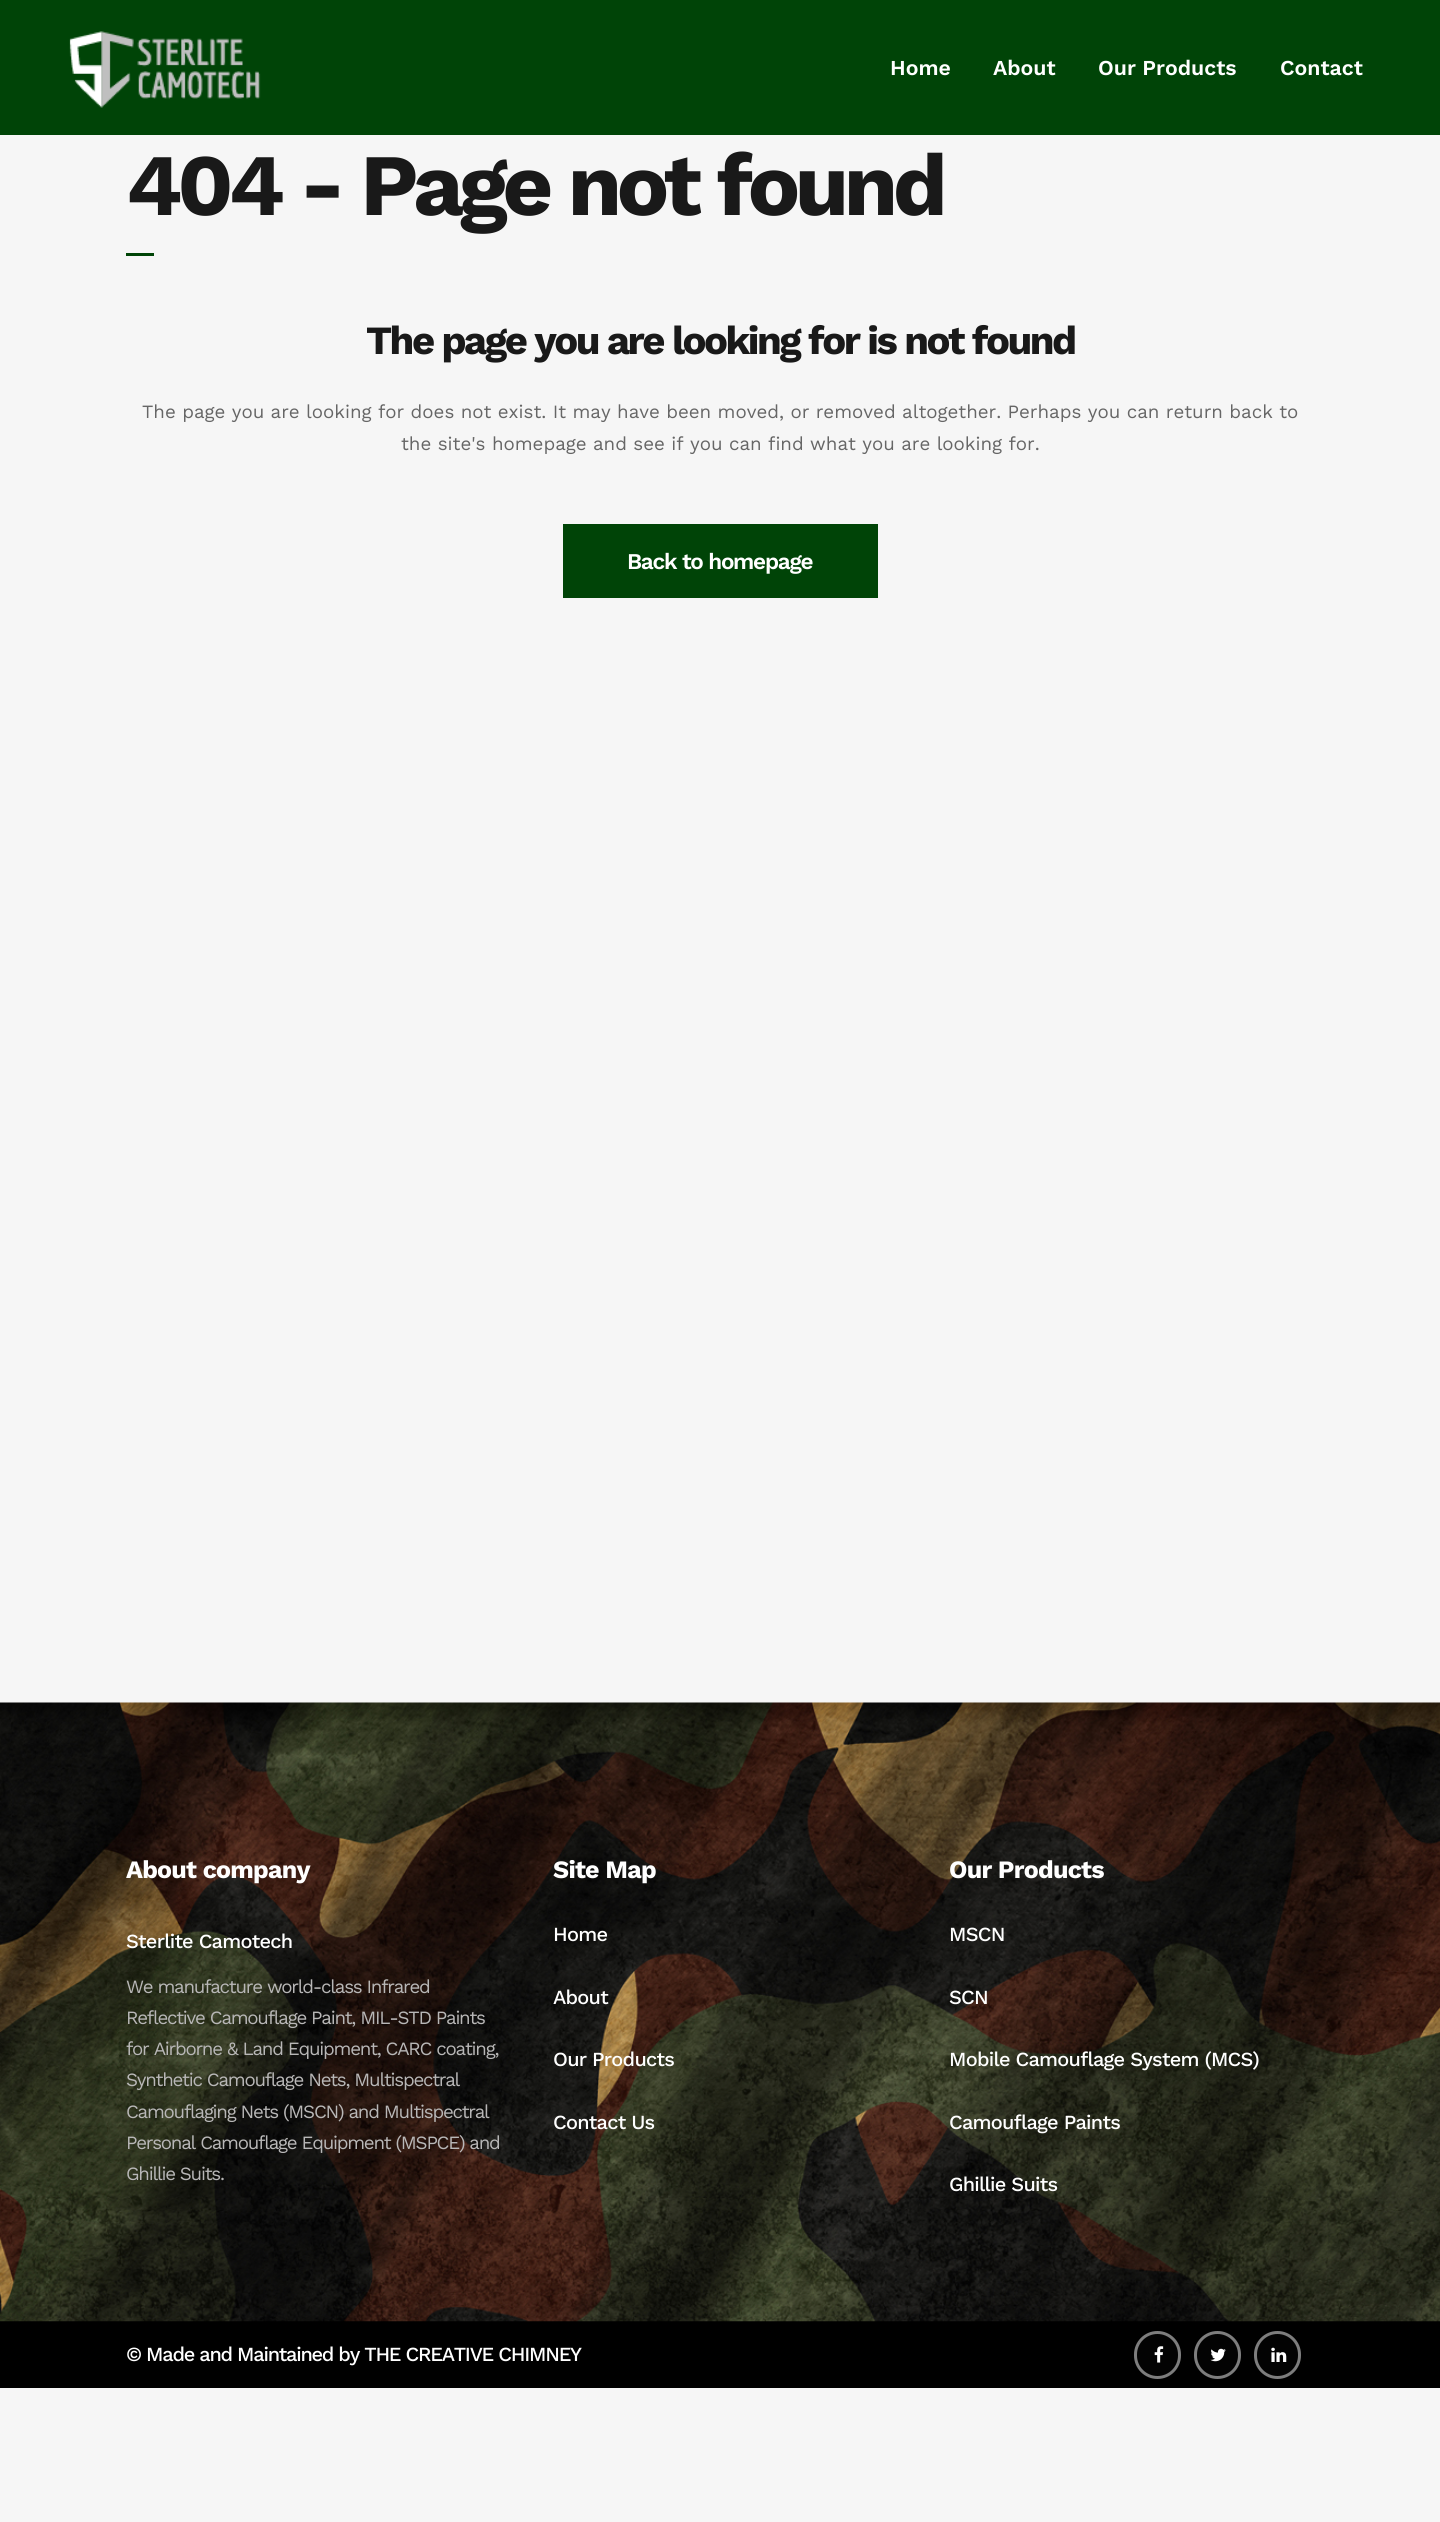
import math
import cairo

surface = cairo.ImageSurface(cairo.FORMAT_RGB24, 1440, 2522)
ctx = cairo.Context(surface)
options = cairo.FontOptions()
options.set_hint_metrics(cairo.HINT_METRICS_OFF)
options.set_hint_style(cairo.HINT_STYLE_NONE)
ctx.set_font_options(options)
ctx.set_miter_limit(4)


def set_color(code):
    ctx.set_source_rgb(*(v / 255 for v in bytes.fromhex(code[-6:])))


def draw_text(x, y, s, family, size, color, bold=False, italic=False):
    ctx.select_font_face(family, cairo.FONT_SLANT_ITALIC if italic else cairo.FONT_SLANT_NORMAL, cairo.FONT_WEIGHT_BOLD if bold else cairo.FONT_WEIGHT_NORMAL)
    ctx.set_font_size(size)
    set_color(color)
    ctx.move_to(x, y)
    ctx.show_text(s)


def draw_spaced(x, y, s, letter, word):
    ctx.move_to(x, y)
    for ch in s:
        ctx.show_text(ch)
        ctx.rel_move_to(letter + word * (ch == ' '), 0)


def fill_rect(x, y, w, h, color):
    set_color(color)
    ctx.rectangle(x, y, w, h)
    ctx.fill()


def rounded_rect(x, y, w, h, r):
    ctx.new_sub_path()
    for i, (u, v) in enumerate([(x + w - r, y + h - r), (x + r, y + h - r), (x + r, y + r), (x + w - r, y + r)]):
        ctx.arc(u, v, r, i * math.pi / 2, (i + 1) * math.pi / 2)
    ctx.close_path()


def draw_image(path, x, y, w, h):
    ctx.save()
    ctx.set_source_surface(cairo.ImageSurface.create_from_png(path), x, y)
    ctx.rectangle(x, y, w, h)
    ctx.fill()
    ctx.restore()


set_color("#f6f6f6")
ctx.paint()
fill_rect(0, 0, 1440, 135, "#004407")
draw_image("assets/img1.png", 69, 31, 192, 77)
draw_text(890, 75, "Home", "Work Sans SemiBold", 21.25, "#ffffff")
draw_text(993, 75, "About", "Work Sans SemiBold", 21.25, "#ffffff")
draw_text(1098, 75, "Our Products", "Work Sans SemiBold", 21.25, "#ffffff")
draw_text(1280, 75, "Contact", "Work Sans SemiBold", 21.25, "#ffffff")
ctx.select_font_face("Work Sans", cairo.FONT_SLANT_NORMAL, cairo.FONT_WEIGHT_BOLD)
ctx.set_font_size(87.5)
set_color("#191919")
draw_spaced(126, 215, "404 - Page not found", -5.25, 0)
fill_rect(126, 253, 28, 3, "#004407")
ctx.set_font_size(40)
set_color("#191919")
draw_spaced(366, 354, "The page you are looking for is not found", -2.5, 0)
draw_text(142, 418, "The page you are looking for does not exist. It may have been moved, or removed altogether. Perhaps you can return back to", "Work Sans", 18.75, "#666666")
draw_text(401, 450, "the site's homepage and see if you can find what you are looking for.", "Work Sans", 18.75, "#666666")
fill_rect(563, 524, 315, 74, "#004407")
ctx.select_font_face("Work Sans SemiBold")
ctx.set_font_size(22.5)
set_color("#ffffff")
draw_spaced(627, 569, "Back to homepage", -1.25, 0)
fill_rect(0, 2321, 1440, 67, "#000000")
draw_image("assets/img2.png", 0, 1702, 1440, 620)
ctx.select_font_face("Work Sans", cairo.FONT_SLANT_NORMAL, cairo.FONT_WEIGHT_BOLD)
ctx.set_font_size(25)
set_color("#ffffff")
draw_spaced(126, 1878, "About company", -0.75, 0)
ctx.select_font_face("Work Sans Medium")
ctx.set_font_size(20)
draw_spaced(126, 1948, "Sterlite Camotech", -0.75, 0)
ctx.select_font_face("Work Sans")
ctx.set_font_size(18.75)
set_color("#b8b7b7")
draw_spaced(126, 1993, "We manufacture world-class Infrared", -1.25, 0)
draw_spaced(126, 2024, "Reflective Camouflage Paint, MIL-STD Paints", -1.25, 0)
draw_spaced(126, 2055, "for Airborne & Land Equipment, CARC coating,", -1.25, 0)
draw_spaced(126, 2086, "Synthetic Camouflage Nets, Multispectral", -1.25, 0)
draw_spaced(126, 2118, "Camouflaging Nets (MSCN) and Multispectral", -1.25, 0)
draw_spaced(126, 2149, "Personal Camouflage Equipment (MSPCE) and", -1.25, 0)
draw_spaced(126, 2180, "Ghillie Suits.", -1.25, 0)
ctx.select_font_face("Work Sans", cairo.FONT_SLANT_NORMAL, cairo.FONT_WEIGHT_BOLD)
ctx.set_font_size(25)
set_color("#ffffff")
draw_spaced(553, 1878, "Site Map", -0.75, 0)
ctx.select_font_face("Work Sans Medium")
ctx.set_font_size(20)
draw_spaced(553, 1941, "Home", -0.75, 0)
draw_spaced(553, 2004, "About", -0.75, 0)
draw_spaced(553, 2066, "Our Products", -0.75, 0)
draw_spaced(553, 2129, "Contact Us", -0.75, 0)
ctx.select_font_face("Work Sans", cairo.FONT_SLANT_NORMAL, cairo.FONT_WEIGHT_BOLD)
ctx.set_font_size(25)
draw_spaced(949, 1878, "Our Products", -0.75, 0)
ctx.select_font_face("Work Sans Medium")
ctx.set_font_size(20)
draw_spaced(949, 1941, "MSCN", -0.75, 0)
draw_spaced(949, 2004, "SCN", -0.75, 0)
draw_spaced(949, 2066, "Mobile Camouflage System (MCS)", -0.75, 0)
draw_spaced(949, 2129, "Camouflage Paints", -0.75, 0)
draw_spaced(949, 2191, "Ghillie Suits", -0.75, 0)
draw_spaced(126, 2361, "© Made and Maintained by THE CREATIVE CHIMNEY", -1.25, 0)
set_color("#030303")
rounded_rect(1135.5, 2332.5, 44, 45, 22)
ctx.fill_preserve()
set_color("#7d7d7d")
ctx.set_line_width(3)
ctx.stroke()
draw_image("assets/img3.png", 1154, 2346, 10, 17)
set_color("#030303")
rounded_rect(1195.5, 2332.5, 44, 45, 22)
ctx.fill_preserve()
set_color("#7d7d7d")
ctx.stroke()
draw_image("assets/img4.png", 1210, 2348, 16, 14)
set_color("#030303")
rounded_rect(1255.5, 2332.5, 44, 45, 22)
ctx.fill_preserve()
set_color("#7d7d7d")
ctx.stroke()
draw_image("assets/img5.png", 1271, 2347, 16, 15)
surface.write_to_png("output.png")
